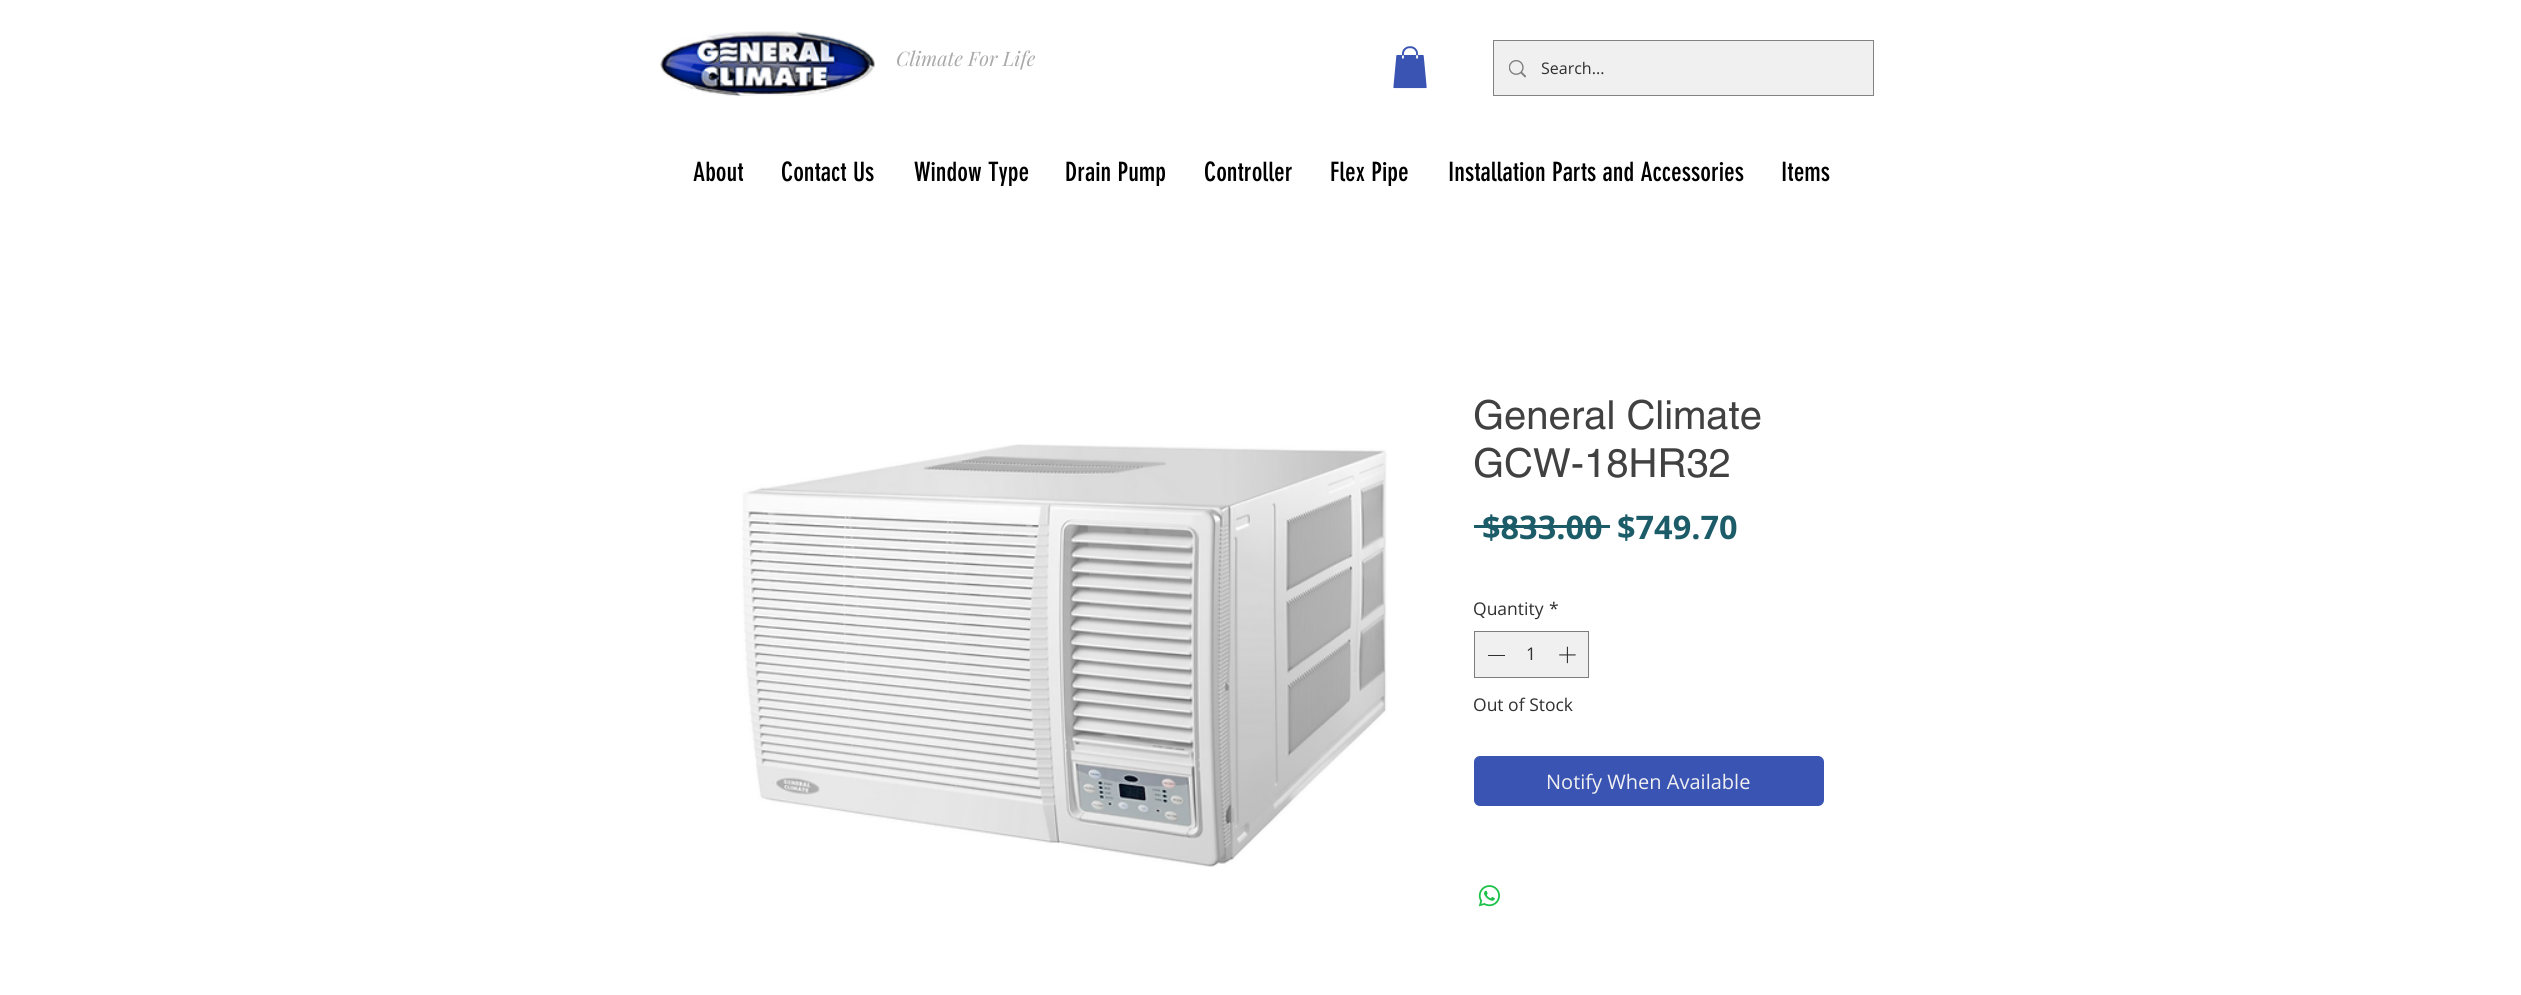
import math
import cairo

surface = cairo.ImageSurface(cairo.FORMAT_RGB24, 2521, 995)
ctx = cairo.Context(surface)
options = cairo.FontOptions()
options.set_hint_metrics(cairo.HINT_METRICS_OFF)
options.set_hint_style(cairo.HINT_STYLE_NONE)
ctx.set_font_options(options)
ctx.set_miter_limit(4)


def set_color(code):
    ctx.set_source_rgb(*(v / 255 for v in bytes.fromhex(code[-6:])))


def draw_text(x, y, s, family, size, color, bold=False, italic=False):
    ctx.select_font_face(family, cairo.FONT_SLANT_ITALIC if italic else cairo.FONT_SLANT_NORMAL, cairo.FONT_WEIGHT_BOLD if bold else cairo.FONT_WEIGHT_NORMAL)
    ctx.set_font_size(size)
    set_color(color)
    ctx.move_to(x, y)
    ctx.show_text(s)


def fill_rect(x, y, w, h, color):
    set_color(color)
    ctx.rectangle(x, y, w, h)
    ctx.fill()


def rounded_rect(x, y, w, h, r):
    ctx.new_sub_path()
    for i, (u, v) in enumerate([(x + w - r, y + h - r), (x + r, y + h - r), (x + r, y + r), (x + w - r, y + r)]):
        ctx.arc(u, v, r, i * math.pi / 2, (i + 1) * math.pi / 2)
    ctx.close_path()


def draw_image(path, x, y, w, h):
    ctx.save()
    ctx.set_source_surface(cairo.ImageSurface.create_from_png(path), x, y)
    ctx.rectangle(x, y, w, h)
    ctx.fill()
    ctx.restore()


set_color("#ffffff")
ctx.paint()
draw_image("assets/img1.png", 660, 31, 215, 66)
draw_text(896, 66, "Climate For Life", "Playfair Display", 20, "#a9a9a9", italic=True)
draw_image("assets/img2.png", 1393, 46, 34, 43)
ctx.rectangle(1493.5, 40.5, 380, 55)
set_color("#838383")
ctx.set_line_width(1)
ctx.stroke()
fill_rect(1494, 41, 379, 54, "#f0f0f0")
draw_image("assets/img3.png", 1509, 60, 17, 18)
draw_text(1541, 74, "Search...", "Open Sans", 16, "#303030")
draw_text(693, 181, "About", "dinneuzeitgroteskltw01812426", 26.25, "#000000")
draw_text(781, 181, "Contact Us", "dinneuzeitgroteskltw01812426", 26.25, "#000000")
draw_text(914, 181, "Window Type", "dinneuzeitgroteskltw01812426", 26.25, "#000000")
draw_text(1065, 181, "Drain Pump", "dinneuzeitgroteskltw01812426", 26.25, "#000000")
draw_text(1204, 181, "Controller", "dinneuzeitgroteskltw01812426", 26.25, "#000000")
draw_text(1330, 181, "Flex Pipe", "dinneuzeitgroteskltw01812426", 26.25, "#000000")
draw_text(1448, 181, "Installation Parts and Accessories", "dinneuzeitgroteskltw01812426", 26.25, "#000000")
draw_text(1781, 181, "Items", "dinneuzeitgroteskltw01812426", 26.25, "#000000")
draw_image("assets/img4.png", 742, 444, 645, 423)
draw_text(1473, 429, "General Climate", "helvetica", 40, "#414141")
draw_text(1473, 477, "GCW-18HR32", "helvetica", 40, "#414141")
draw_text(1482, 539, "$833.00", "Open Sans", 32.5, "#1c5c69", bold=True)
fill_rect(1474, 525, 136, 3, "#1c5c69")
draw_text(1617, 539, "$749.70", "Open Sans", 32.5, "#1c5c69", bold=True)
draw_text(1473, 615, "Quantity", "Open Sans", 17.5, "#303030")
draw_text(1549, 615, "*", "Open Sans", 17.5, "#303030")
set_color("#f0f0f0")
ctx.rectangle(1474.5, 631.5, 114, 46)
ctx.fill_preserve()
set_color("#7d7d7d")
ctx.stroke()
fill_rect(1488, 655, 17, 1, "#303030")
draw_text(1526, 660, "1", "Open Sans", 17.5, "#303030")
draw_image("assets/img5.png", 1559, 646, 17, 18)
draw_text(1473, 711, "Out of Stock", "Open Sans", 17.5, "#303030")
set_color("#3a54b4")
rounded_rect(1474, 756, 350, 50, 6)
ctx.fill()
draw_text(1546, 789, "Notify When Available", "Open Sans", 20, "#f0f0f0")
draw_image("assets/img6.png", 1478, 885, 22, 22)
surface.write_to_png("output.png")
